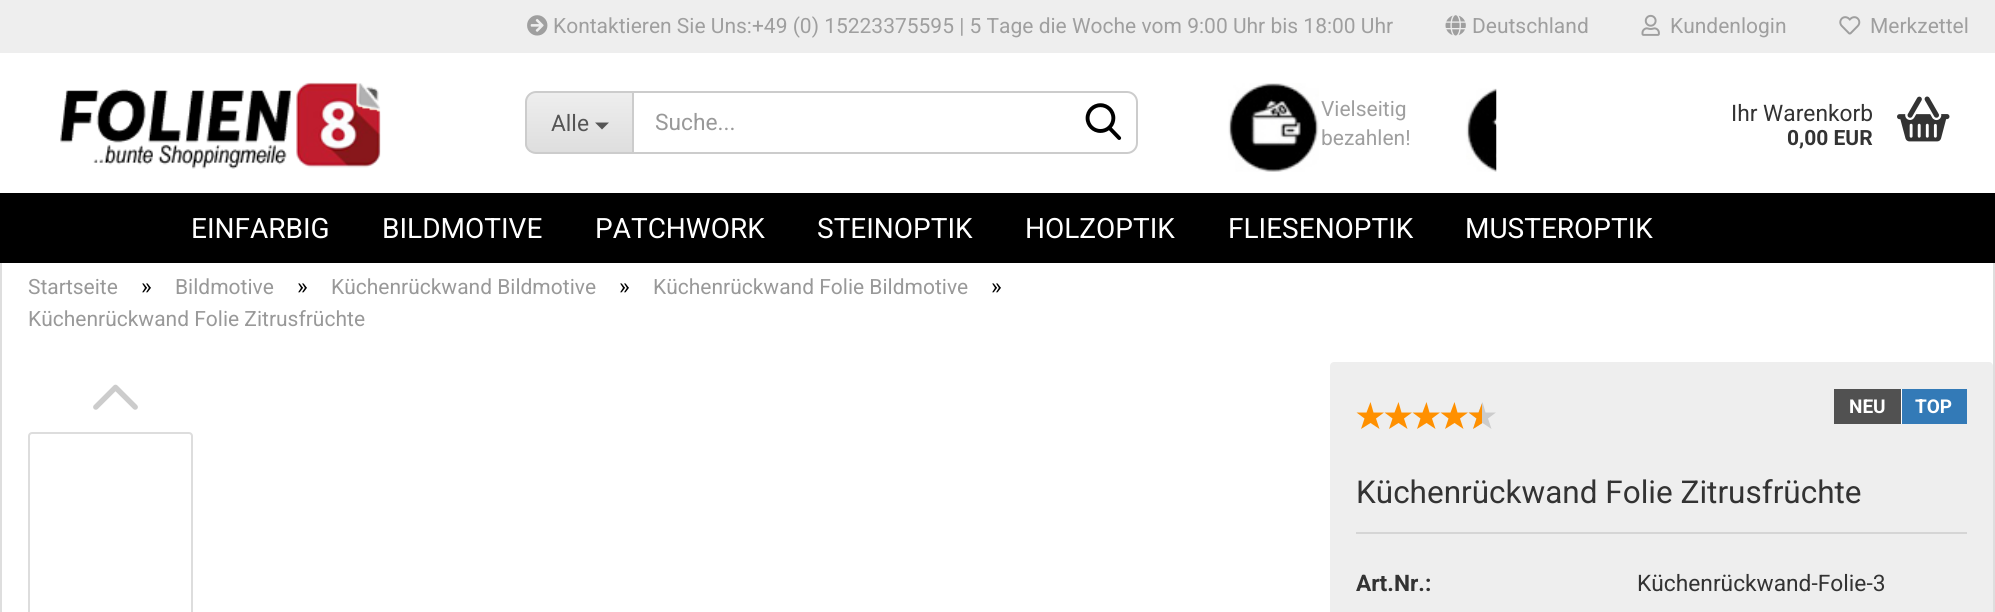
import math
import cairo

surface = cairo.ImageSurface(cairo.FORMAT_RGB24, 1995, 612)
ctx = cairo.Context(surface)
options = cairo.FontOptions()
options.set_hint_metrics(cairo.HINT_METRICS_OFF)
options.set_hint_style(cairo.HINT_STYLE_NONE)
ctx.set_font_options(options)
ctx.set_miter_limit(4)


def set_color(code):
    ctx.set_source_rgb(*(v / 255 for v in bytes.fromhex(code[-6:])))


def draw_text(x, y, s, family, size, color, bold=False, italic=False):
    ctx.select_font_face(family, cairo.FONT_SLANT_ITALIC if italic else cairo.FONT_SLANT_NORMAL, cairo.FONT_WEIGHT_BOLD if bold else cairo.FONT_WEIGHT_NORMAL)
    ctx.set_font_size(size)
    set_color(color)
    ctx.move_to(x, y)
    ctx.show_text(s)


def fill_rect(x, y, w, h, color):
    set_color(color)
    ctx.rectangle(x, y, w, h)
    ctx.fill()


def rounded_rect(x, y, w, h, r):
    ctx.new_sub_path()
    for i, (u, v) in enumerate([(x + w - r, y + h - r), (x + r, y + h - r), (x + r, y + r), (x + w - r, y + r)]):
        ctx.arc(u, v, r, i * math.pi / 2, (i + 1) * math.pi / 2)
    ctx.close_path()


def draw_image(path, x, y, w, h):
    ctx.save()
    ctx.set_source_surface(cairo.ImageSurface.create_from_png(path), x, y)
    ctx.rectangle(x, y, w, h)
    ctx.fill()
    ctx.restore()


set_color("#ffffff")
ctx.paint()
fill_rect(0, 0, 1995, 53, "#eeeeee")
draw_image("assets/img1.png", 527, 15, 21, 21)
draw_text(553, 33, "Kontaktieren Sie Uns:+49 (0) 15223375595 | 5 Tage die Woche vom 9:00 Uhr bis 18:00 Uhr", "Roboto", 21, "#9f9f9f")
draw_image("assets/img2.png", 1445, 15, 21, 21)
draw_text(1472, 33, "Deutschland", "Roboto", 21, "#9f9f9f")
draw_image("assets/img3.png", 1641, 14, 19, 22)
draw_text(1670, 33, "Kundenlogin", "Roboto", 21, "#9f9f9f")
draw_image("assets/img4.png", 1839, 16, 22, 19)
draw_text(1870, 33, "Merkzettel", "Roboto", 21, "#9f9f9f")
draw_image("assets/img5.png", 60, 82, 321, 87)
ctx.save()
ctx.new_path()
ctx.move_to(536, 91)
ctx.line_to(632, 91)
ctx.line_to(632, 154)
ctx.line_to(536, 154)
ctx.curve_to(530, 154, 525, 149, 525, 143)
ctx.line_to(525, 102)
ctx.curve_to(525, 96, 530, 91, 536, 91)
ctx.close_path()
ctx.clip()
gradient = cairo.LinearGradient(579, 93, 579, 152)
gradient.add_color_stop_rgba(0, 0.933, 0.933, 0.933, 1)
gradient.add_color_stop_rgba(1, 0.871, 0.871, 0.871, 1)
ctx.set_source(gradient)
ctx.rectangle(525, 93, 107, 59)
ctx.fill()
ctx.restore()
set_color("#cccccc")
ctx.set_fill_rule(cairo.FILL_RULE_EVEN_ODD)
ctx.new_path()
ctx.move_to(536, 91)
ctx.line_to(632, 91)
ctx.line_to(632, 154)
ctx.line_to(536, 154)
ctx.curve_to(530, 154, 525, 149, 525, 144)
ctx.line_to(525, 102)
ctx.curve_to(525, 96, 530, 91, 536, 91)
ctx.close_path()
ctx.move_to(536, 93)
ctx.line_to(632, 93)
ctx.line_to(632, 152)
ctx.line_to(536, 152)
ctx.curve_to(531, 152, 527, 148, 527, 144)
ctx.line_to(527, 102)
ctx.curve_to(527, 97, 531, 93, 536, 93)
ctx.close_path()
ctx.fill()
draw_text(551, 131, "Alle", "Roboto", 22.75, "#555555")
ctx.set_fill_rule(cairo.FILL_RULE_WINDING)
ctx.new_path()
ctx.move_to(595, 122.5)
ctx.line_to(609, 122.5)
ctx.line_to(602, 129.5)
ctx.close_path()
ctx.fill()
ctx.new_path()
ctx.move_to(633, 92)
ctx.line_to(1127, 92)
ctx.curve_to(1132.5, 92, 1137, 96.5, 1137, 102)
ctx.line_to(1137, 143)
ctx.curve_to(1137, 148.5, 1132.5, 153, 1127, 153)
ctx.line_to(633, 153)
ctx.close_path()
set_color("#cccccc")
ctx.stroke()
draw_text(655, 130, "Suche...", "Roboto", 22.75, "#999999")
draw_image("assets/img6.png", 1085, 103, 37, 37)
draw_image("assets/img7.png", 1228, 83, 91, 89)
draw_text(1321, 116, "Vielseitig", "Roboto", 21, "#9f9f9f")
draw_text(1321, 145, "bezahlen!", "Roboto", 21, "#9f9f9f")
draw_image("assets/img8.png", 1466, 88, 31, 84)
draw_text(1731, 121, "Ihr Warenkorb", "Roboto", 22.75, "#333333")
draw_text(1787, 145, "0,00 EUR", "Roboto", 21, "#333333", bold=True)
draw_image("assets/img9.png", 1897, 96, 53, 46)
fill_rect(0, 193, 1995, 70, "#000000")
draw_text(191, 238, "EINFARBIG", "Roboto", 28, "#ffffff")
draw_text(382, 238, "BILDMOTIVE", "Roboto", 28, "#ffffff")
draw_text(595, 238, "PATCHWORK", "Roboto", 28, "#ffffff")
draw_text(817, 238, "STEINOPTIK", "Roboto", 28, "#ffffff")
draw_text(1025, 238, "HOLZOPTIK", "Roboto", 28, "#ffffff")
draw_text(1228, 238, "FLIESENOPTIK", "Roboto", 28, "#ffffff")
draw_text(1465, 238, "MUSTEROPTIK", "Roboto", 28, "#ffffff")
fill_rect(1993, 263, 2, 349, "#dedede")
fill_rect(0, 263, 2, 349, "#dedede")
draw_text(28, 294, "Startseite", "Roboto", 21, "#999999")
draw_text(141, 294, "»", "Roboto", 22.75, "#000000")
draw_text(175, 294, "Bildmotive", "Roboto", 21, "#999999")
draw_text(297, 294, "»", "Roboto", 22.75, "#000000")
draw_text(331, 294, "Küchenrückwand Bildmotive", "Roboto", 21, "#999999")
draw_text(619, 294, "»", "Roboto", 22.75, "#000000")
draw_text(653, 294, "Küchenrückwand Folie Bildmotive", "Roboto", 21, "#999999")
draw_text(991, 294, "»", "Roboto", 22.75, "#000000")
draw_text(28, 326, "Küchenrückwand Folie Zitrusfrüchte", "Roboto", 21, "#999999")
draw_image("assets/img10.png", 93, 384, 45, 26)
rounded_rect(29, 433, 163, 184, 3)
set_color("#dddddd")
ctx.stroke()
set_color("#eeeeee")
rounded_rect(1330, 362, 663, 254, 4)
ctx.fill()
fill_rect(1834, 389, 67, 35, "#515151")
fill_rect(1901, 389, 1, 35, "#ffffff")
draw_text(1849, 413, "NEU", "Roboto", 19, "#ffffff", bold=True)
fill_rect(1902, 389, 65, 35, "#337ab7")
draw_text(1915, 413, "TOP", "Roboto", 19, "#ffffff", bold=True)
set_color("#ff9000")
ctx.new_path()
ctx.move_to(1370.5, 423)
ctx.line_to(1361, 429)
ctx.line_to(1364.5, 418.5)
ctx.line_to(1356.5, 412.5)
ctx.line_to(1366.5, 412.5)
ctx.line_to(1370.5, 402)
ctx.line_to(1373.5, 412.5)
ctx.line_to(1384, 412.5)
ctx.line_to(1376, 418.5)
ctx.line_to(1379.5, 429)
ctx.close_path()
ctx.move_to(1398.5, 423)
ctx.line_to(1389, 429)
ctx.line_to(1392.5, 418.5)
ctx.line_to(1384.5, 412.5)
ctx.line_to(1394.5, 412.5)
ctx.line_to(1398.5, 402)
ctx.line_to(1401.5, 412.5)
ctx.line_to(1412, 412.5)
ctx.line_to(1404, 418.5)
ctx.line_to(1407.5, 429)
ctx.close_path()
ctx.fill()
ctx.new_path()
ctx.move_to(1426.5, 423)
ctx.line_to(1417, 429)
ctx.line_to(1420.5, 418.5)
ctx.line_to(1412.5, 412.5)
ctx.line_to(1422.5, 412.5)
ctx.line_to(1426.5, 402)
ctx.line_to(1429.5, 412.5)
ctx.line_to(1440, 412.5)
ctx.line_to(1432, 418.5)
ctx.line_to(1435.5, 429)
ctx.close_path()
ctx.move_to(1454.5, 423)
ctx.line_to(1445, 429)
ctx.line_to(1448.5, 418.5)
ctx.line_to(1440.5, 412.5)
ctx.line_to(1450.5, 412.5)
ctx.line_to(1454.5, 402)
ctx.line_to(1457.5, 412.5)
ctx.line_to(1468, 412.5)
ctx.line_to(1460, 418.5)
ctx.line_to(1463.5, 429)
ctx.close_path()
ctx.fill()
set_color("#cccccc")
ctx.new_path()
ctx.move_to(1482.5, 423)
ctx.line_to(1473, 429)
ctx.line_to(1476.5, 418.5)
ctx.line_to(1468.5, 412.5)
ctx.line_to(1478.5, 412.5)
ctx.line_to(1482.5, 402)
ctx.line_to(1485.5, 412.5)
ctx.line_to(1496, 412.5)
ctx.line_to(1488, 418.5)
ctx.line_to(1491.5, 429)
ctx.close_path()
ctx.fill()
ctx.save()
ctx.rectangle(1356, 397, 126, 51)
ctx.clip()
set_color("#ff9000")
ctx.new_path()
ctx.move_to(1482.5, 423)
ctx.line_to(1473, 429)
ctx.line_to(1476.5, 418.5)
ctx.line_to(1468.5, 412.5)
ctx.line_to(1478.5, 412.5)
ctx.line_to(1482.5, 402)
ctx.line_to(1485.5, 412.5)
ctx.line_to(1496, 412.5)
ctx.line_to(1488, 418.5)
ctx.line_to(1491.5, 429)
ctx.close_path()
ctx.fill()
ctx.restore()
fill_rect(1356, 532, 611, 2, "#d5d5d5")
draw_text(1356, 503, "Küchenrückwand Folie Zitrusfrüchte", "Roboto", 31.5, "#333333")
draw_text(1356, 591, "Art.Nr.:", "Roboto", 22.75, "#333333", bold=True)
draw_text(1637, 591, "Küchenrückwand-Folie-3", "Roboto", 22.75, "#333333")
surface.write_to_png("output.png")
